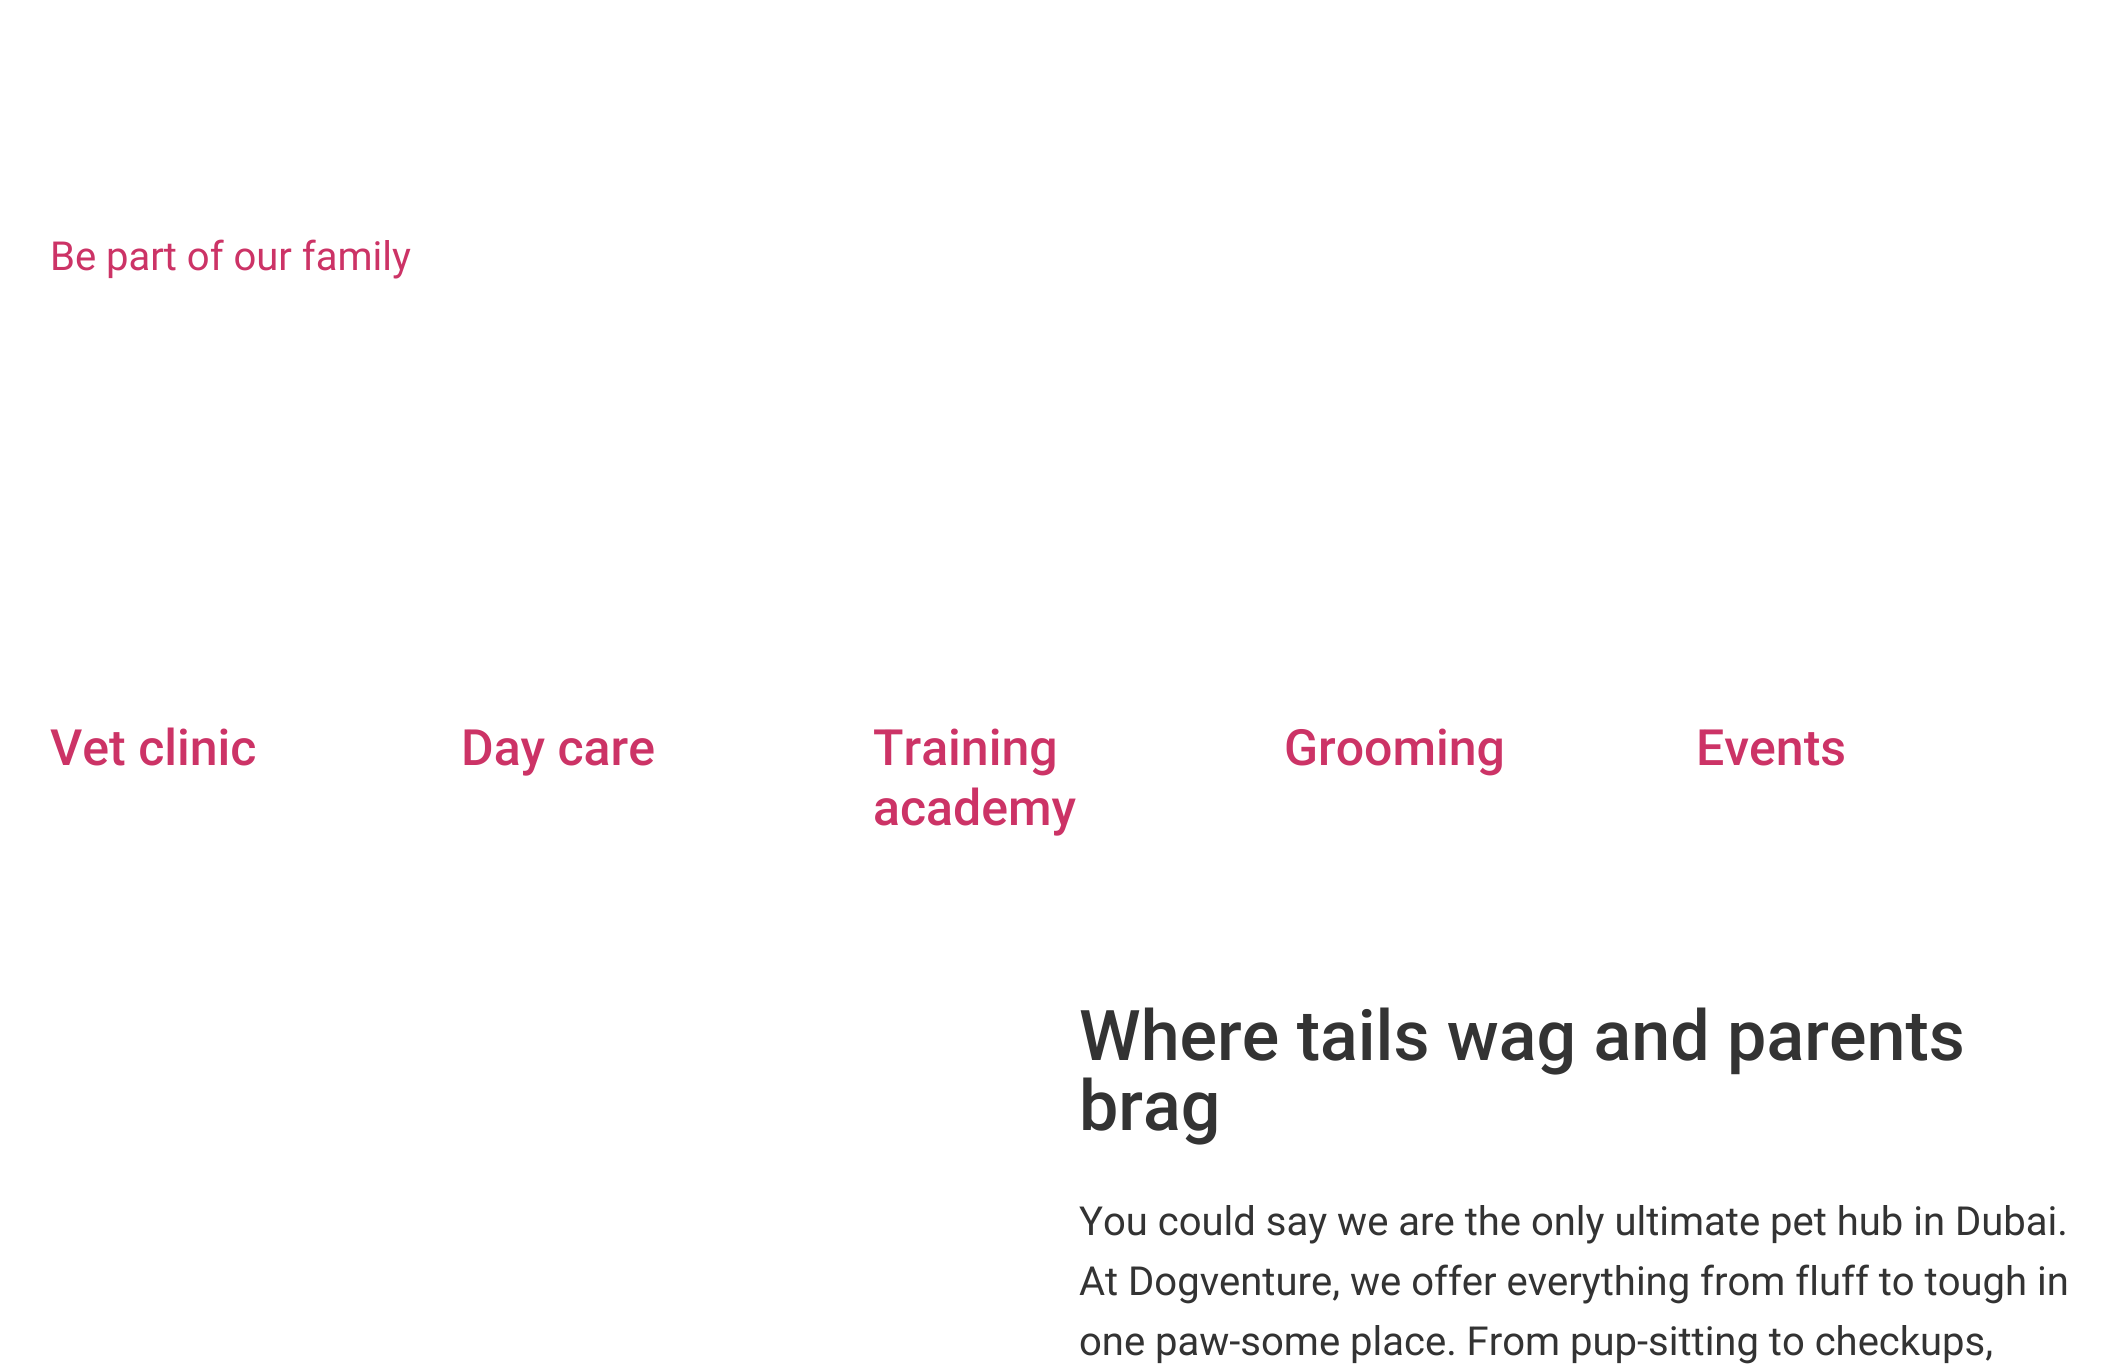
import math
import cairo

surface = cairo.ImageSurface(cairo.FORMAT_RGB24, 2106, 1371)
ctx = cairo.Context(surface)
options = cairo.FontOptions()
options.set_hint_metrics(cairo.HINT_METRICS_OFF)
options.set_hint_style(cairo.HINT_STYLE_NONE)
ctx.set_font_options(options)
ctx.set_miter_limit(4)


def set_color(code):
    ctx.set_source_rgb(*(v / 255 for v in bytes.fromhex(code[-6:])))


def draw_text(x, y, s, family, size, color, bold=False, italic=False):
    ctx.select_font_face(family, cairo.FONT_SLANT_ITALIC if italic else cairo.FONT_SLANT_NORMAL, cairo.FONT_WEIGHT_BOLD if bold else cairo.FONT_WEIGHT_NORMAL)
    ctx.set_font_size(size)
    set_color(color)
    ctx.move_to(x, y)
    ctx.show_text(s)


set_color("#ffffff")
ctx.paint()
draw_text(50, 270, "Be part of our family", "Roboto", 40, "#cc3366")
draw_text(50, 765, "Vet clinic", "Roboto Medium", 50, "#cc3366")
draw_text(461, 765, "Day care", "Roboto Medium", 50, "#cc3366")
draw_text(873, 765, "Training", "Roboto Medium", 50, "#cc3366")
draw_text(873, 825, "academy", "Roboto Medium", 50, "#cc3366")
draw_text(1284, 765, "Grooming", "Roboto Medium", 50, "#cc3366")
draw_text(1696, 765, "Events", "Roboto Medium", 50, "#cc3366")
draw_text(1079, 1060, "Where tails wag and parents", "Roboto Medium", 70, "#333333")
draw_text(1079, 1130, "brag", "Roboto Medium", 70, "#333333")
draw_text(1079, 1235, "You could say we are the only ultimate pet hub in Dubai.", "Roboto", 40, "#333333")
draw_text(1079, 1295, "At Dogventure, we offer everything from fluff to tough in", "Roboto", 40, "#333333")
draw_text(1079, 1355, "one paw-some place. From pup-sitting to checkups,", "Roboto", 40, "#333333")
surface.write_to_png("output.png")
